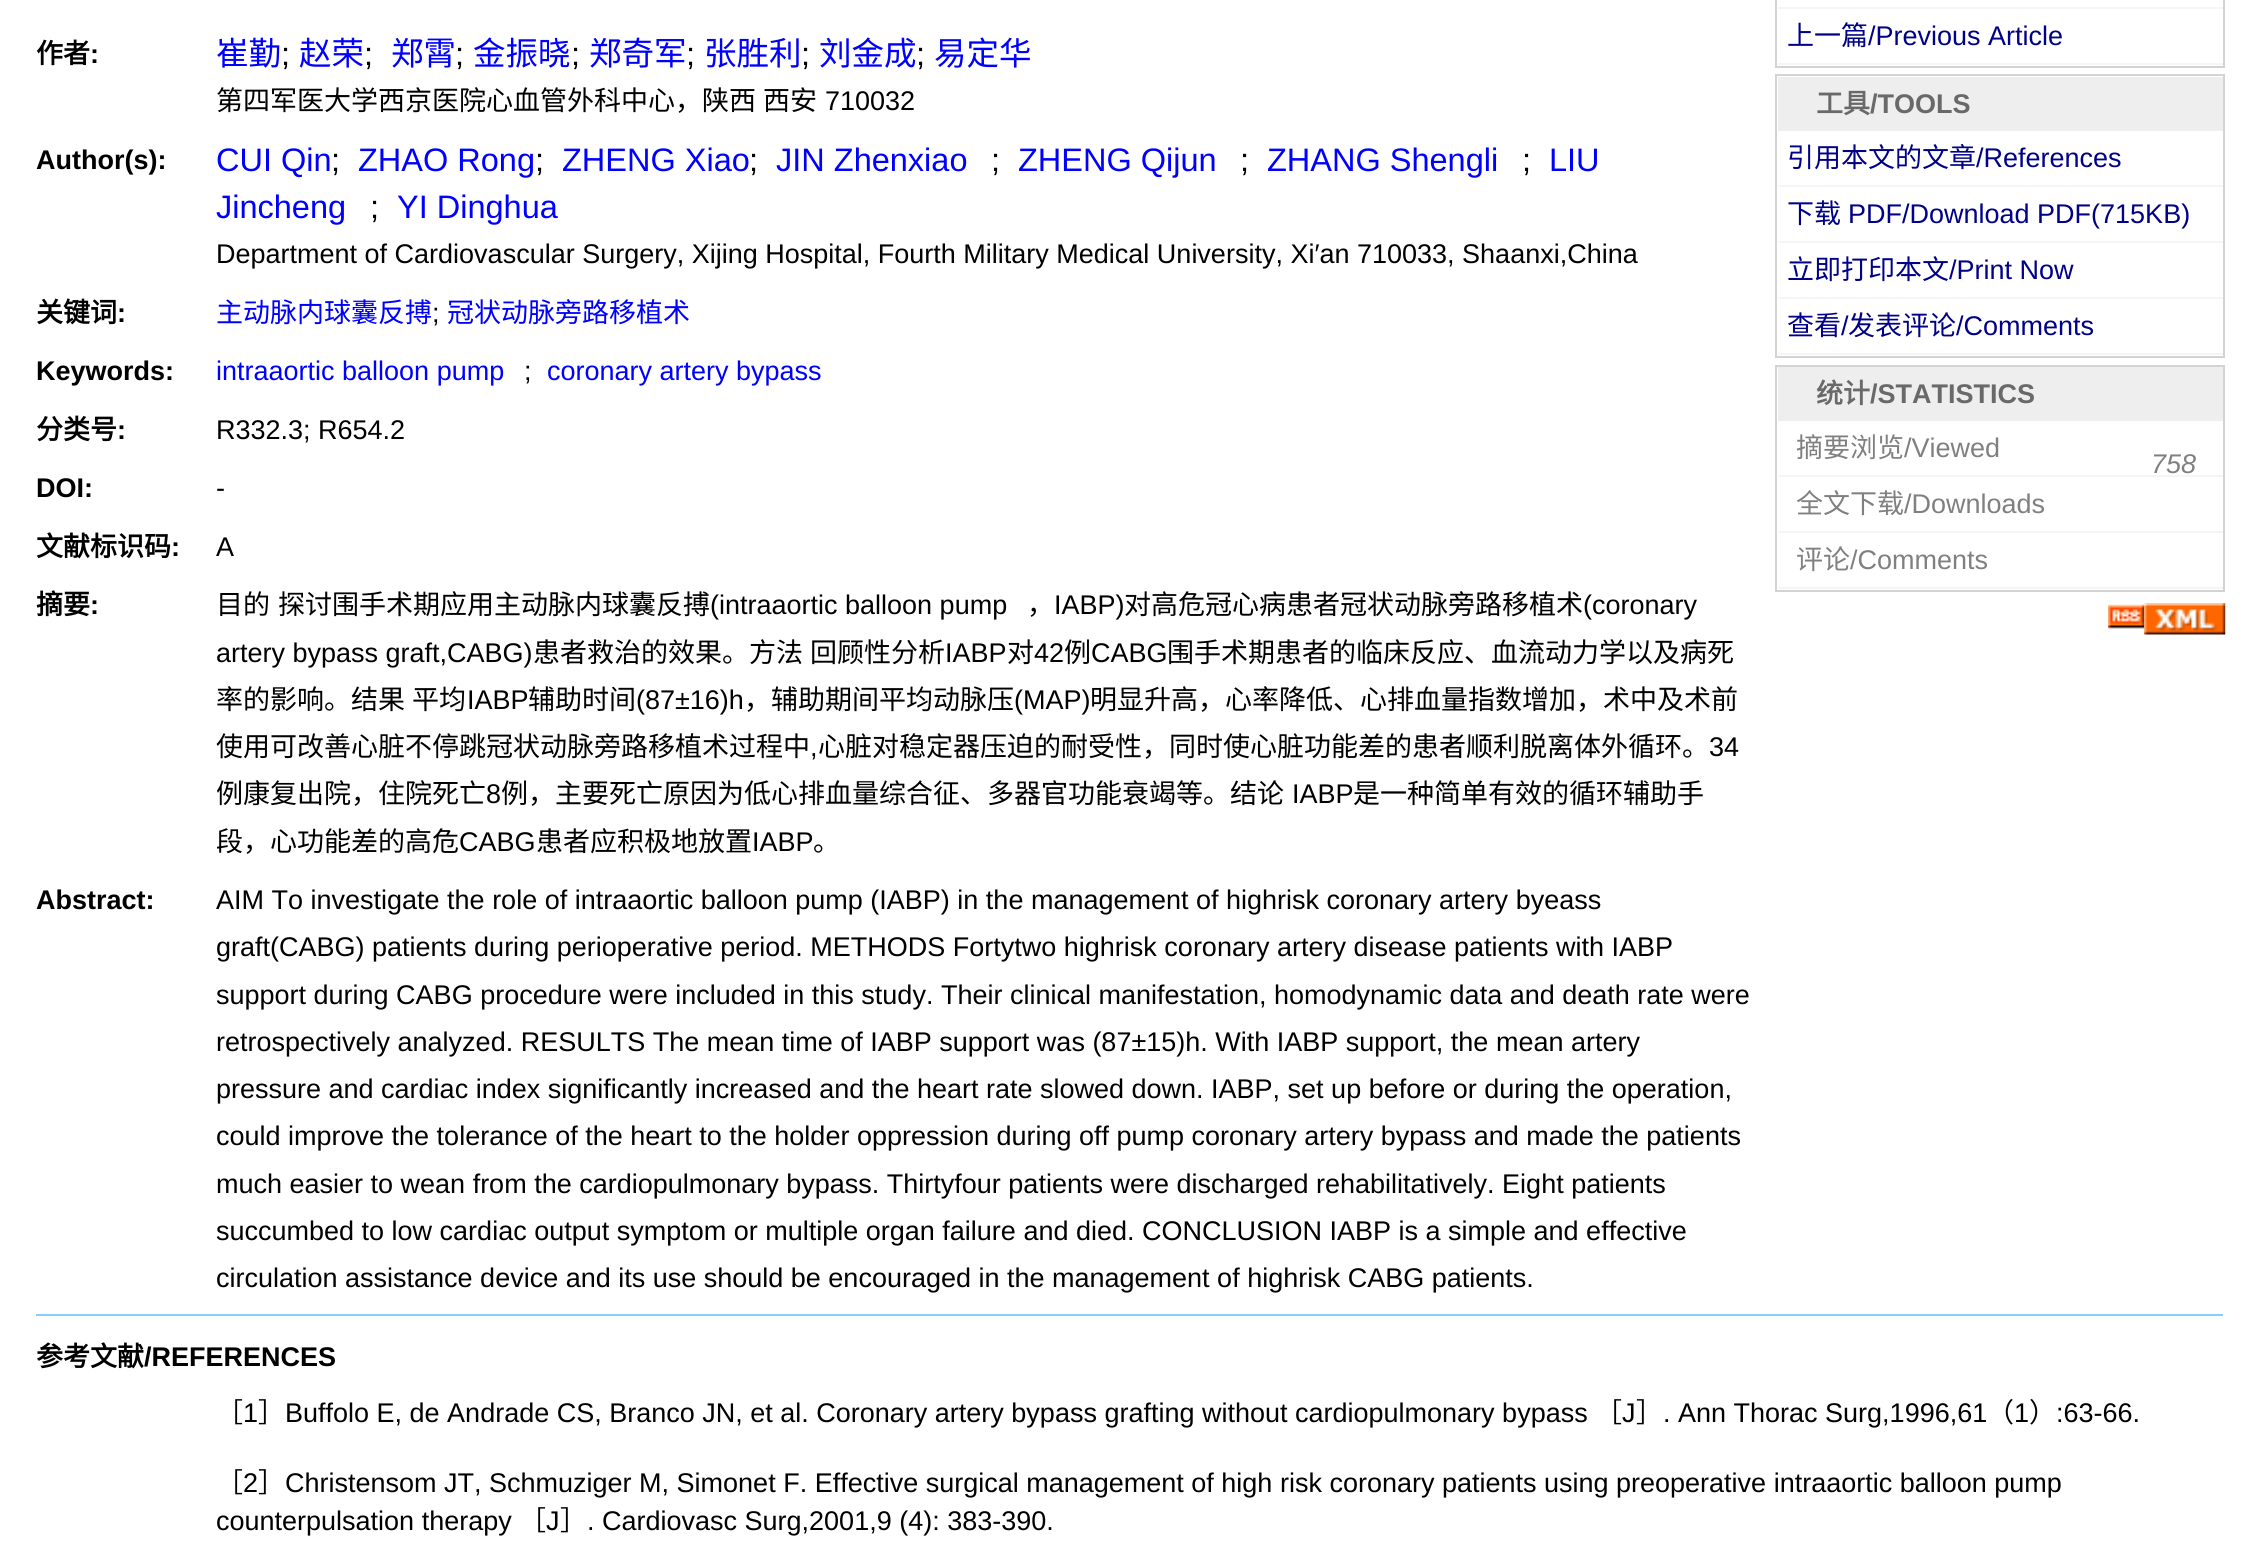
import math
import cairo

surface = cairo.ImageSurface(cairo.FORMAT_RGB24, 2257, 1566)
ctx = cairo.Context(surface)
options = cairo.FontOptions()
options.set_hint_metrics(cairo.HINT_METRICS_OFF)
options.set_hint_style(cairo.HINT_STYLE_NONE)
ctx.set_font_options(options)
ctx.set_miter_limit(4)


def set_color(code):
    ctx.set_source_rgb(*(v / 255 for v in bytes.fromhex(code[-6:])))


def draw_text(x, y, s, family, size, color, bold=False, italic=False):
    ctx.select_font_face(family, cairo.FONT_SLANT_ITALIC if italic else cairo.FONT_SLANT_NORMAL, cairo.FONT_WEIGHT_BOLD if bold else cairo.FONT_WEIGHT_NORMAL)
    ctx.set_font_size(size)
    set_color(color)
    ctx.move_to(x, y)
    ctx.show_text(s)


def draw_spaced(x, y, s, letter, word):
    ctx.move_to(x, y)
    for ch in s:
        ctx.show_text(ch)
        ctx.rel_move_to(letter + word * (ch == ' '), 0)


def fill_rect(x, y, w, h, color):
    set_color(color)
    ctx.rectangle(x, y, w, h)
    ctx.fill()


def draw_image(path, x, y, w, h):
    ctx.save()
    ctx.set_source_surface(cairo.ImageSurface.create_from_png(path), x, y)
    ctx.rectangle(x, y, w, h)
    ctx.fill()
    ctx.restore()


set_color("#ffffff")
ctx.paint()
draw_text(36, 63, "作者", "Noto Sans CJK SC", 27, "#000000", bold=True)
draw_text(90, 63, ":", "Liberation Sans", 27, "#000000", bold=True)
draw_text(216, 65, "崔勤", "Noto Sans CJK SC", 32.5, "#0000ff")
draw_text(281, 65, ";", "Liberation Sans", 32.5, "#000000")
draw_text(299, 65, "赵荣", "Noto Sans CJK SC", 32.5, "#0000ff")
draw_text(364, 65, ";", "Liberation Sans", 32.5, "#000000")
draw_text(391, 65, "郑霄", "Noto Sans CJK SC", 32.5, "#0000ff")
draw_text(455, 65, ";", "Liberation Sans", 32.5, "#000000")
draw_text(473, 65, "金振晓", "Noto Sans CJK SC", 32.5, "#0000ff")
draw_text(571, 65, ";", "Liberation Sans", 32.5, "#000000")
draw_text(589, 65, "郑奇军", "Noto Sans CJK SC", 32.5, "#0000ff")
draw_text(686, 65, ";", "Liberation Sans", 32.5, "#000000")
draw_text(704, 65, "张胜利", "Noto Sans CJK SC", 32.5, "#0000ff")
draw_text(801, 65, ";", "Liberation Sans", 32.5, "#000000")
draw_text(819, 65, "刘金成", "Noto Sans CJK SC", 32.5, "#0000ff")
draw_text(916, 65, ";", "Liberation Sans", 32.5, "#000000")
draw_text(934, 65, "易定华", "Noto Sans CJK SC", 32.5, "#0000ff")
ctx.set_font_size(27)
set_color("#000000")
draw_spaced(216, 110, "第四军医大学西京医院心血管外科中心，陕西 西安", 0, 1)
draw_text(825, 110, "710032", "Liberation Sans", 27, "#000000")
draw_text(36, 169, "Author(s):", "Liberation Sans", 27, "#000000", bold=True)
draw_text(216, 171, "CUI Qin", "Liberation Sans", 32.5, "#0000ff")
draw_text(331, 171, ";", "Liberation Sans", 32.5, "#000000")
draw_text(358, 171, "ZHAO Rong", "Liberation Sans", 32.5, "#0000ff")
draw_text(535, 171, ";", "Liberation Sans", 32.5, "#000000")
draw_text(562, 171, "ZHENG Xiao", "Liberation Sans", 32.5, "#0000ff")
draw_text(749, 171, ";", "Liberation Sans", 32.5, "#000000")
draw_text(776, 171, "JIN Zhenxiao", "Liberation Sans", 32.5, "#0000ff")
draw_text(991, 171, ";", "Liberation Sans", 32.5, "#000000")
draw_text(1018, 171, "ZHENG Qijun", "Liberation Sans", 32.5, "#0000ff")
draw_text(1240, 171, ";", "Liberation Sans", 32.5, "#000000")
draw_text(1267, 171, "ZHANG Shengli", "Liberation Sans", 32.5, "#0000ff")
draw_text(1522, 171, ";", "Liberation Sans", 32.5, "#000000")
draw_text(1549, 171, "LIU", "Liberation Sans", 32.5, "#0000ff")
draw_text(216, 218, "Jincheng", "Liberation Sans", 32.5, "#0000ff")
draw_text(370, 218, ";", "Liberation Sans", 32.5, "#000000")
draw_text(397, 218, "YI Dinghua", "Liberation Sans", 32.5, "#0000ff")
draw_text(216, 263, "Department of Cardiovascular Surgery, Xijing Hospital, Fourth Military Medical University, Xi′an 710033, Shaanxi,China", "Liberation Sans", 27, "#000000")
draw_text(36, 322, "关键词", "Noto Sans CJK SC", 27, "#000000", bold=True)
draw_text(117, 322, ":", "Liberation Sans", 27, "#000000", bold=True)
draw_text(216, 322, "主动脉内球囊反搏", "Noto Sans CJK SC", 27, "#0000ff")
draw_text(432, 322, ";", "Liberation Sans", 27, "#000000")
draw_text(447, 322, "冠状动脉旁路移植术", "Noto Sans CJK SC", 27, "#0000ff")
draw_text(36, 380, "Keywords:", "Liberation Sans", 27, "#000000", bold=True)
draw_text(216, 380, "intraaortic balloon pump", "Liberation Sans", 27, "#0000ff")
draw_text(524, 380, ";", "Liberation Sans", 27, "#000000")
draw_text(547, 380, "coronary artery bypass", "Liberation Sans", 27, "#0000ff")
draw_text(36, 439, "分类号", "Noto Sans CJK SC", 27, "#000000", bold=True)
draw_text(117, 439, ":", "Liberation Sans", 27, "#000000", bold=True)
draw_text(216, 439, "R332.3; R654.2", "Liberation Sans", 27, "#000000")
draw_text(36, 497, "DOI:", "Liberation Sans", 27, "#000000", bold=True)
draw_text(216, 497, "-", "Liberation Sans", 27, "#000000")
draw_text(36, 556, "文献标识码", "Noto Sans CJK SC", 27, "#000000", bold=True)
draw_text(171, 556, ":", "Liberation Sans", 27, "#000000", bold=True)
draw_text(216, 556, "A", "Liberation Sans", 27, "#000000")
draw_text(36, 614, "摘要", "Noto Sans CJK SC", 27, "#000000", bold=True)
draw_text(90, 614, ":", "Liberation Sans", 27, "#000000", bold=True)
draw_text(216, 614, "目的", "Noto Sans CJK SC", 27, "#000000")
draw_text(278, 614, "探讨围手术期应用主动脉内球囊反搏", "Noto Sans CJK SC", 27, "#000000")
draw_text(710, 614, "(intraaortic balloon pump", "Liberation Sans", 27, "#000000")
draw_text(1027, 614, "，", "Noto Sans CJK SC", 27, "#000000")
draw_text(1054, 614, "IABP)", "Liberation Sans", 27, "#000000")
draw_text(1124, 614, "对高危冠心病患者冠状动脉旁路移植术", "Noto Sans CJK SC", 27, "#000000")
draw_text(1583, 614, "(coronary", "Liberation Sans", 27, "#000000")
draw_text(216, 662, "artery bypass graft,CABG)", "Liberation Sans", 27, "#000000")
draw_text(533, 662, "患者救治的效果。方法", "Noto Sans CJK SC", 27, "#000000")
draw_text(810, 662, "回顾性分析", "Noto Sans CJK SC", 27, "#000000")
draw_text(945, 662, "IABP", "Liberation Sans", 27, "#000000")
draw_text(1007, 662, "对", "Noto Sans CJK SC", 27, "#000000")
draw_text(1034, 662, "42", "Liberation Sans", 27, "#000000")
draw_text(1064, 662, "例", "Noto Sans CJK SC", 27, "#000000")
draw_text(1091, 662, "CABG", "Liberation Sans", 27, "#000000")
draw_text(1167, 662, "围手术期患者的临床反应、血流动力学以及病死", "Noto Sans CJK SC", 27, "#000000")
draw_spaced(216, 709, "率的影响。结果 平均", 0, 1)
draw_text(467, 709, "IABP", "Liberation Sans", 27, "#000000")
draw_text(528, 709, "辅助时间", "Noto Sans CJK SC", 27, "#000000")
draw_text(636, 709, "(87±16)h", "Liberation Sans", 27, "#000000")
draw_text(744, 709, "，辅助期间平均动脉压", "Noto Sans CJK SC", 27, "#000000")
draw_text(1014, 709, "(MAP)", "Liberation Sans", 27, "#000000")
draw_text(1090, 709, "明显升高，心率降低、心排血量指数增加，术中及术前", "Noto Sans CJK SC", 27, "#000000")
draw_text(216, 756, "使用可改善心脏不停跳冠状动脉旁路移植术过程中", "Noto Sans CJK SC", 27, "#000000")
draw_text(810, 756, ",", "Liberation Sans", 27, "#000000")
draw_text(818, 756, "心脏对稳定器压迫的耐受性，同时使心脏功能差的患者顺利脱离体外循环。", "Noto Sans CJK SC", 27, "#000000")
draw_text(1709, 756, "34", "Liberation Sans", 27, "#000000")
draw_text(216, 803, "例康复出院，住院死亡", "Noto Sans CJK SC", 27, "#000000")
draw_text(486, 803, "8", "Liberation Sans", 27, "#000000")
draw_text(501, 803, "例，主要死亡原因为低心排血量综合征、多器官功能衰竭等。结论", "Noto Sans CJK SC", 27, "#000000")
draw_text(1292, 803, "IABP", "Liberation Sans", 27, "#000000")
draw_text(1353, 803, "是一种简单有效的循环辅助手", "Noto Sans CJK SC", 27, "#000000")
draw_text(216, 851, "段，心功能差的高危", "Noto Sans CJK SC", 27, "#000000")
draw_text(459, 851, "CABG", "Liberation Sans", 27, "#000000")
draw_text(536, 851, "患者应积极地放置", "Noto Sans CJK SC", 27, "#000000")
draw_text(752, 851, "IABP", "Liberation Sans", 27, "#000000")
draw_text(813, 851, "。", "Noto Sans CJK SC", 27, "#000000")
draw_text(36, 909, "Abstract:", "Liberation Sans", 27, "#000000", bold=True)
draw_text(216, 909, "AIM To investigate the role of intraaortic balloon pump (IABP) in the management of highrisk coronary artery byeass", "Liberation Sans", 27, "#000000")
draw_text(216, 956, "graft(CABG) patients during perioperative period. METHODS Fortytwo highrisk coronary artery disease patients with IABP", "Liberation Sans", 27, "#000000")
draw_text(216, 1004, "support during CABG procedure were included in this study. Their clinical manifestation, homodynamic data and death rate were", "Liberation Sans", 27, "#000000")
draw_text(216, 1051, "retrospectively analyzed. RESULTS The mean time of IABP support was (87±15)h. With IABP support, the mean artery", "Liberation Sans", 27, "#000000")
draw_text(216, 1098, "pressure and cardiac index significantly increased and the heart rate slowed down. IABP, set up before or during the operation,", "Liberation Sans", 27, "#000000")
draw_text(216, 1145, "could improve the tolerance of the heart to the holder oppression during off pump coronary artery bypass and made the patients", "Liberation Sans", 27, "#000000")
draw_text(216, 1193, "much easier to wean from the cardiopulmonary bypass. Thirtyfour patients were discharged rehabilitatively. Eight patients", "Liberation Sans", 27, "#000000")
draw_text(216, 1240, "succumbed to low cardiac output symptom or multiple organ failure and died. CONCLUSION IABP is a simple and effective", "Liberation Sans", 27, "#000000")
draw_text(216, 1287, "circulation assistance device and its use should be encouraged in the management of highrisk CABG patients.", "Liberation Sans", 27, "#000000")
ctx.rectangle(1776, -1, 448, 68)
set_color("#d3d3d3")
ctx.stroke()
fill_rect(1778, 7, 445, 2, "#f5f5f5")
fill_rect(1778, 63, 445, 2, "#f5f5f5")
draw_text(1787, 45, "上一篇", "Noto Sans CJK SC", 27, "#000088")
draw_text(1868, 45, "/Previous Article", "Liberation Sans", 27, "#000088")
ctx.rectangle(1776, 75, 448, 282)
set_color("#d3d3d3")
ctx.stroke()
fill_rect(1778, 77, 445, 54, "#eeeeee")
draw_text(1816, 113, "工具", "Noto Sans CJK SC", 27, "#696969", bold=True)
draw_text(1870, 113, "/TOOLS", "Liberation Sans", 27, "#696969", bold=True)
fill_rect(1778, 185, 445, 2, "#f5f5f5")
draw_text(1787, 167, "引用本文的文章", "Noto Sans CJK SC", 27, "#000088")
draw_text(1976, 167, "/References", "Liberation Sans", 27, "#000088")
fill_rect(1778, 241, 445, 2, "#f5f5f5")
draw_text(1787, 223, "下载", "Noto Sans CJK SC", 27, "#000088")
draw_text(1848, 223, "PDF/Download PDF(715KB)", "Liberation Sans", 27, "#000088")
fill_rect(1778, 297, 445, 2, "#f5f5f5")
draw_text(1787, 279, "立即打印本文", "Noto Sans CJK SC", 27, "#000088")
draw_text(1949, 279, "/Print Now", "Liberation Sans", 27, "#000088")
fill_rect(1778, 353, 445, 2, "#f5f5f5")
draw_text(1787, 335, "查看", "Noto Sans CJK SC", 27, "#000088")
draw_text(1841, 335, "/", "Liberation Sans", 27, "#000088")
draw_text(1848, 335, "发表评论", "Noto Sans CJK SC", 27, "#000088")
draw_text(1956, 335, "/Comments", "Liberation Sans", 27, "#000088")
ctx.rectangle(1776, 366, 448, 225)
set_color("#d3d3d3")
ctx.stroke()
fill_rect(1778, 367, 445, 54, "#eeeeee")
draw_text(1816, 403, "统计", "Noto Sans CJK SC", 27, "#696969", bold=True)
draw_text(1870, 403, "/STATISTICS", "Liberation Sans", 27, "#696969", bold=True)
fill_rect(1778, 475, 445, 2, "#f5f5f5")
draw_text(1796, 457, "摘要浏览", "Noto Sans CJK SC", 27, "#808080")
draw_text(1904, 457, "/Viewed", "Liberation Sans", 27, "#808080")
fill_rect(1778, 531, 445, 2, "#f5f5f5")
draw_text(2151, 473, "758", "Liberation Sans", 27, "#808080", italic=True)
draw_text(1796, 513, "全文下载", "Noto Sans CJK SC", 27, "#808080")
draw_text(1904, 513, "/Downloads", "Liberation Sans", 27, "#808080")
fill_rect(1778, 587, 445, 2, "#f5f5f5")
draw_text(1796, 569, "评论", "Noto Sans CJK SC", 27, "#808080")
draw_text(1850, 569, "/Comments", "Liberation Sans", 27, "#808080")
draw_image("assets/img1.png", 2108, 604, 37, 25)
draw_image("assets/img2.png", 2144, 603, 82, 32)
fill_rect(36, 1314, 2187, 2, "#87cefa")
draw_text(36, 1366, "参考文献", "Noto Sans CJK SC", 27, "#000000", bold=True)
draw_text(144, 1366, "/REFERENCES", "Liberation Sans", 27, "#000000", bold=True)
draw_text(216, 1422, "［", "Noto Sans CJK SC", 27, "#000000")
draw_text(243, 1422, "1", "Liberation Sans", 27, "#000000")
draw_text(258, 1422, "］", "Noto Sans CJK SC", 27, "#000000")
draw_text(285, 1422, "Buffolo E, de Andrade CS, Branco JN, et al. Coronary artery bypass grafting without cardiopulmonary bypass", "Liberation Sans", 27, "#000000")
draw_text(1595, 1422, "［", "Noto Sans CJK SC", 27, "#000000")
draw_text(1622, 1422, "J", "Liberation Sans", 27, "#000000")
draw_text(1636, 1422, "］", "Noto Sans CJK SC", 27, "#000000")
draw_text(1663, 1422, ". Ann Thorac Surg,1996,61", "Liberation Sans", 27, "#000000")
draw_text(1987, 1422, "（", "Noto Sans CJK SC", 27, "#000000")
draw_text(2014, 1422, "1", "Liberation Sans", 27, "#000000")
draw_text(2029, 1422, "）", "Noto Sans CJK SC", 27, "#000000")
draw_text(2056, 1422, ":63-66.", "Liberation Sans", 27, "#000000")
draw_text(216, 1492, "［", "Noto Sans CJK SC", 27, "#000000")
draw_text(243, 1492, "2", "Liberation Sans", 27, "#000000")
draw_text(258, 1492, "］", "Noto Sans CJK SC", 27, "#000000")
draw_text(285, 1492, "Christensom JT, Schmuziger M, Simonet F. Effective surgical management of high risk coronary patients using preoperative intraaortic balloon pump", "Liberation Sans", 27, "#000000")
draw_text(216, 1530, "counterpulsation therapy", "Liberation Sans", 27, "#000000")
draw_text(519, 1530, "［", "Noto Sans CJK SC", 27, "#000000")
draw_text(546, 1530, "J", "Liberation Sans", 27, "#000000")
draw_text(560, 1530, "］", "Noto Sans CJK SC", 27, "#000000")
draw_text(587, 1530, ". Cardiovasc Surg,2001,9 (4): 383-390.", "Liberation Sans", 27, "#000000")
surface.write_to_png("output.png")
